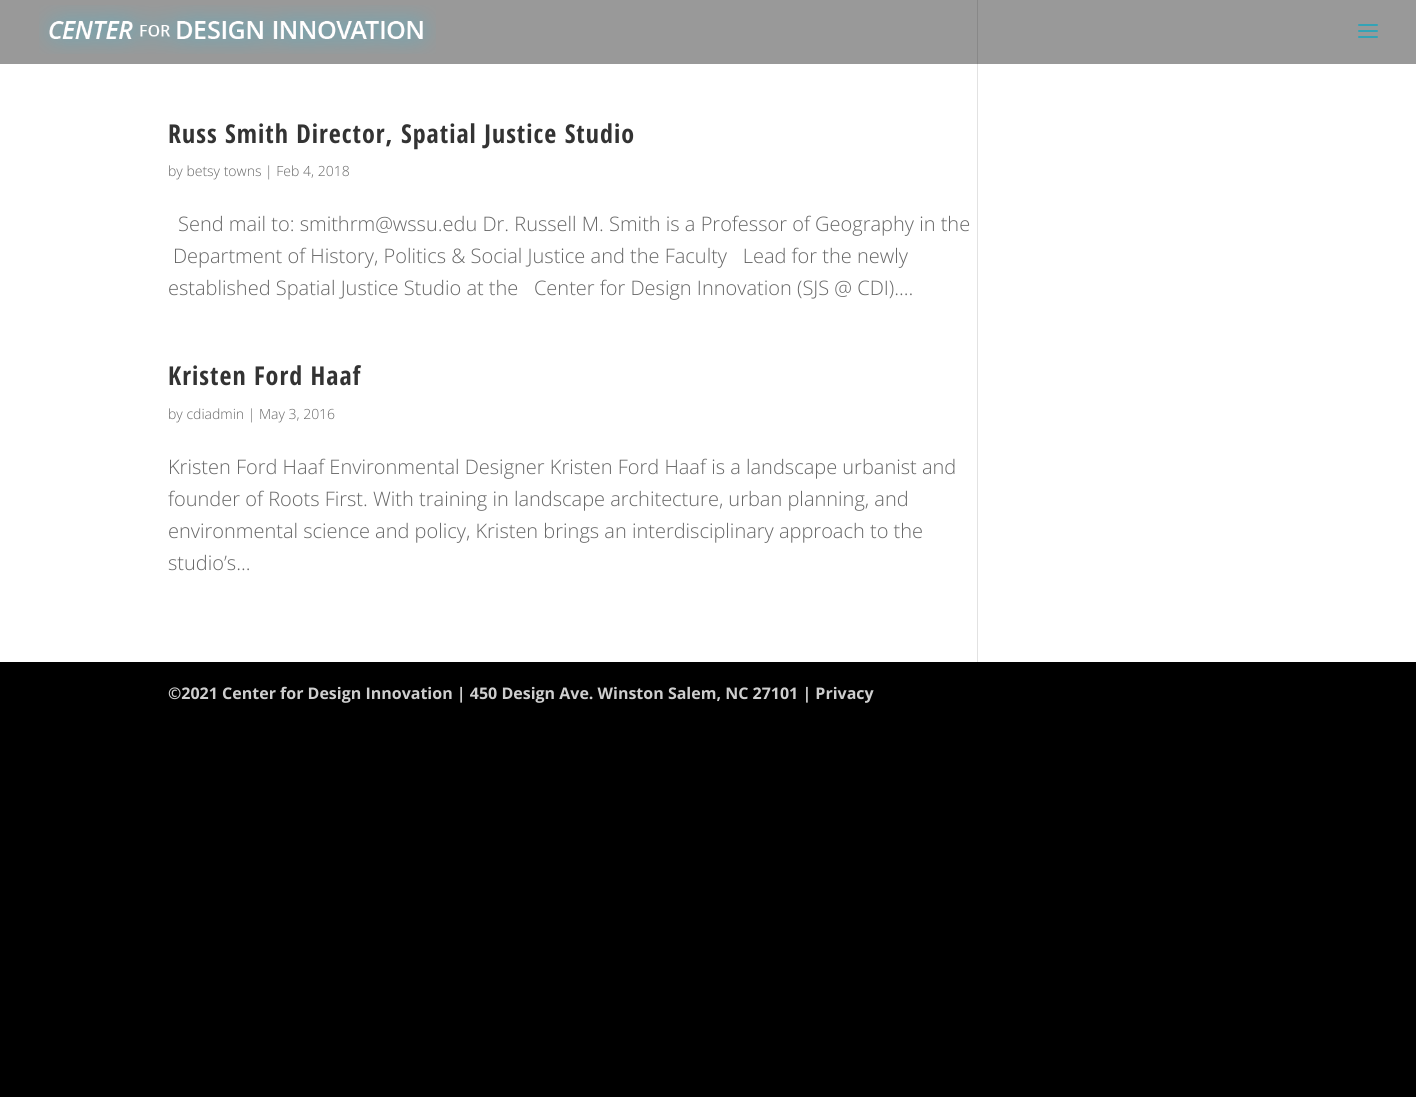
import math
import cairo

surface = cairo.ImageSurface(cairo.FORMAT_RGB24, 1416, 1097)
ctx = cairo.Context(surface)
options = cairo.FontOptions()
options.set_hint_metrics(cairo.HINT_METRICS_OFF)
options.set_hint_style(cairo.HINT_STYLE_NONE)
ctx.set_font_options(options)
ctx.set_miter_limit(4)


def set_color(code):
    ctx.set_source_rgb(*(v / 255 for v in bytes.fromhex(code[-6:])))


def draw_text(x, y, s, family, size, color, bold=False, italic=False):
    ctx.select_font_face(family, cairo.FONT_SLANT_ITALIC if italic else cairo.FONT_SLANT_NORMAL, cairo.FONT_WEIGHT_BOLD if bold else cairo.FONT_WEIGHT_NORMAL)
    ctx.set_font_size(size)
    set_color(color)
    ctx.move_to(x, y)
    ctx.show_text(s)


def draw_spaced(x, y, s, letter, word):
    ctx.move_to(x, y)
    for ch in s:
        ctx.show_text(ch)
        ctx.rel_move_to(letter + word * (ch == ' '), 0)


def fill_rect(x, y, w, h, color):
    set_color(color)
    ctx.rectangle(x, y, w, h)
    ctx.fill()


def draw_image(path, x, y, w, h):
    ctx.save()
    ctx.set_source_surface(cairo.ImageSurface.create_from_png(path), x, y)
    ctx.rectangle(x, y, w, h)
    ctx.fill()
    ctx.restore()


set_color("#000000")
ctx.paint()
fill_rect(0, 0, 1416, 64, "#999999")
draw_image("assets/img1.png", 39, 5, 397, 49)
draw_image("assets/img2.png", 1358, 24, 20, 14)
fill_rect(0, 64, 1416, 598, "#ffffff")
ctx.select_font_face("Open Sans Condensed", cairo.FONT_SLANT_NORMAL, cairo.FONT_WEIGHT_BOLD)
ctx.set_font_size(26)
set_color("#333333")
draw_spaced(168, 143, "Russ Smith Director, Spatial Justice Studio", 1, 0)
draw_text(168, 176, "by betsy towns | Feb 4, 2018", "Open Sans Light", 14, "#666666")
draw_text(178, 231, "Send mail to: smithrm@wssu.edu Dr. Russell M. Smith is a Professor of Geography in the", "Open Sans Light", 20, "#666666")
draw_text(173, 263, "Department of History, Politics & Social Justice and the Faculty   Lead for the newly", "Open Sans Light", 20, "#666666")
draw_text(168, 295, "established Spatial Justice Studio at the   Center for Design Innovation (SJS @ CDI)....", "Open Sans Light", 20, "#666666")
ctx.select_font_face("Open Sans Condensed", cairo.FONT_SLANT_NORMAL, cairo.FONT_WEIGHT_BOLD)
ctx.set_font_size(26)
set_color("#333333")
draw_spaced(168, 385, "Kristen Ford Haaf", 1, 0)
draw_text(168, 419, "by cdiadmin | May 3, 2016", "Open Sans Light", 14, "#666666")
draw_text(168, 474, "Kristen Ford Haaf Environmental Designer Kristen Ford Haaf is a landscape urbanist and", "Open Sans Light", 20, "#666666")
draw_text(168, 506, "founder of Roots First. With training in landscape architecture, urban planning, and", "Open Sans Light", 20, "#666666")
draw_text(168, 538, "environmental science and policy, Kristen brings an interdisciplinary approach to the", "Open Sans Light", 20, "#666666")
draw_text(168, 570, "studio’s...", "Open Sans Light", 20, "#666666")
fill_rect(977, 64, 1, 598, "#e2e2e2")
fill_rect(977, 0, 1, 64, "#888888")
draw_text(168, 699, "©2021 Center for Design Innovation | 450 Design Ave. Winston Salem, NC 27101 | Privacy", "Open Sans", 16, "#cecece", bold=True)
surface.write_to_png("output.png")
